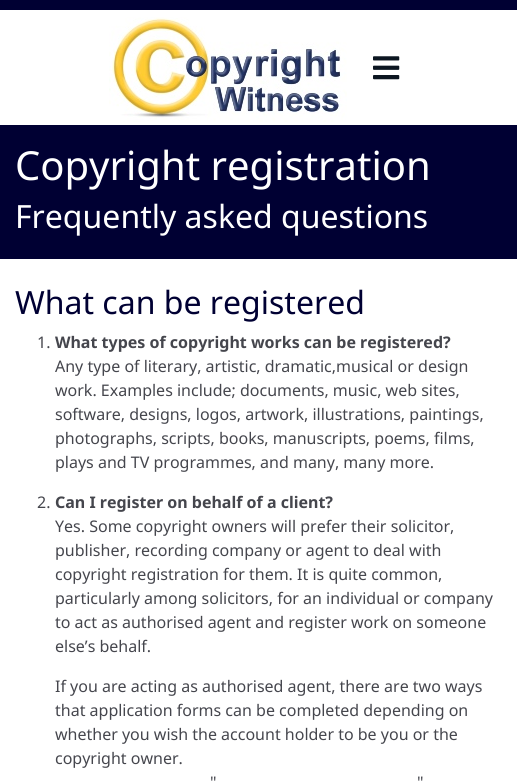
import math
import cairo

surface = cairo.ImageSurface(cairo.FORMAT_RGB24, 517, 783)
ctx = cairo.Context(surface)
options = cairo.FontOptions()
options.set_hint_metrics(cairo.HINT_METRICS_OFF)
options.set_hint_style(cairo.HINT_STYLE_NONE)
ctx.set_font_options(options)
ctx.set_miter_limit(4)


def set_color(code):
    ctx.set_source_rgb(*(v / 255 for v in bytes.fromhex(code[-6:])))


def draw_text(x, y, s, family, size, color, bold=False, italic=False):
    ctx.select_font_face(family, cairo.FONT_SLANT_ITALIC if italic else cairo.FONT_SLANT_NORMAL, cairo.FONT_WEIGHT_BOLD if bold else cairo.FONT_WEIGHT_NORMAL)
    ctx.set_font_size(size)
    set_color(color)
    ctx.move_to(x, y)
    ctx.show_text(s)


def fill_rect(x, y, w, h, color):
    set_color(color)
    ctx.rectangle(x, y, w, h)
    ctx.fill()


def draw_image(path, x, y, w, h):
    ctx.save()
    ctx.set_source_surface(cairo.ImageSurface.create_from_png(path), x, y)
    ctx.rectangle(x, y, w, h)
    ctx.fill()
    ctx.restore()


set_color("#ffffff")
ctx.paint()
fill_rect(0, 0, 517, 10, "#000033")
draw_image("assets/img1.png", 109, 17, 238, 105)
draw_image("assets/img2.png", 373, 56, 27, 24)
fill_rect(0, 125, 517, 134, "#000033")
draw_text(15, 180, "Copyright registration", "Noto Sans", 40, "#ffffff")
draw_text(15, 228, "Frequently asked questions", "Noto Sans", 32, "#ffffff")
draw_text(15, 314, "What can be registered", "Noto Sans", 32, "#000033")
draw_text(37, 348, "1.", "Noto Sans", 16, "#45464d")
draw_text(55, 348, "What types of copyright works can be registered?", "Noto Sans", 16, "#45464d", bold=True)
draw_text(55, 372, "Any type of literary, artistic, dramatic,musical or design", "Noto Sans", 16, "#45464d")
draw_text(55, 396, "work. Examples include; documents, music, web sites,", "Noto Sans", 16, "#45464d")
draw_text(55, 420, "software, designs, logos, artwork, illustrations, paintings,", "Noto Sans", 16, "#45464d")
draw_text(55, 444, "photographs, scripts, books, manuscripts, poems, films,", "Noto Sans", 16, "#45464d")
draw_text(55, 468, "plays and TV programmes, and many, many more.", "Noto Sans", 16, "#45464d")
draw_text(37, 508, "2.", "Noto Sans", 16, "#45464d")
draw_text(55, 508, "Can I register on behalf of a client?", "Noto Sans", 16, "#45464d", bold=True)
draw_text(55, 532, "Yes. Some copyright owners will prefer their solicitor,", "Noto Sans", 16, "#45464d")
draw_text(55, 556, "publisher, recording company or agent to deal with", "Noto Sans", 16, "#45464d")
draw_text(55, 580, "copyright registration for them. It is quite common,", "Noto Sans", 16, "#45464d")
draw_text(55, 604, "particularly among solicitors, for an individual or company", "Noto Sans", 16, "#45464d")
draw_text(55, 628, "to act as authorised agent and register work on someone", "Noto Sans", 16, "#45464d")
draw_text(55, 652, "else’s behalf.", "Noto Sans", 16, "#45464d")
draw_text(55, 692, "If you are acting as authorised agent, there are two ways", "Noto Sans", 16, "#45464d")
draw_text(55, 716, "that application forms can be completed depending on", "Noto Sans", 16, "#45464d")
draw_text(55, 740, "whether you wish the account holder to be you or the", "Noto Sans", 16, "#45464d")
draw_text(55, 764, "copyright owner.", "Noto Sans", 16, "#45464d")
draw_text(210, 788, "\"", "Noto Sans", 16, "#45464d")
draw_text(417, 788, "\"", "Noto Sans", 16, "#45464d")
surface.write_to_png("output.png")
